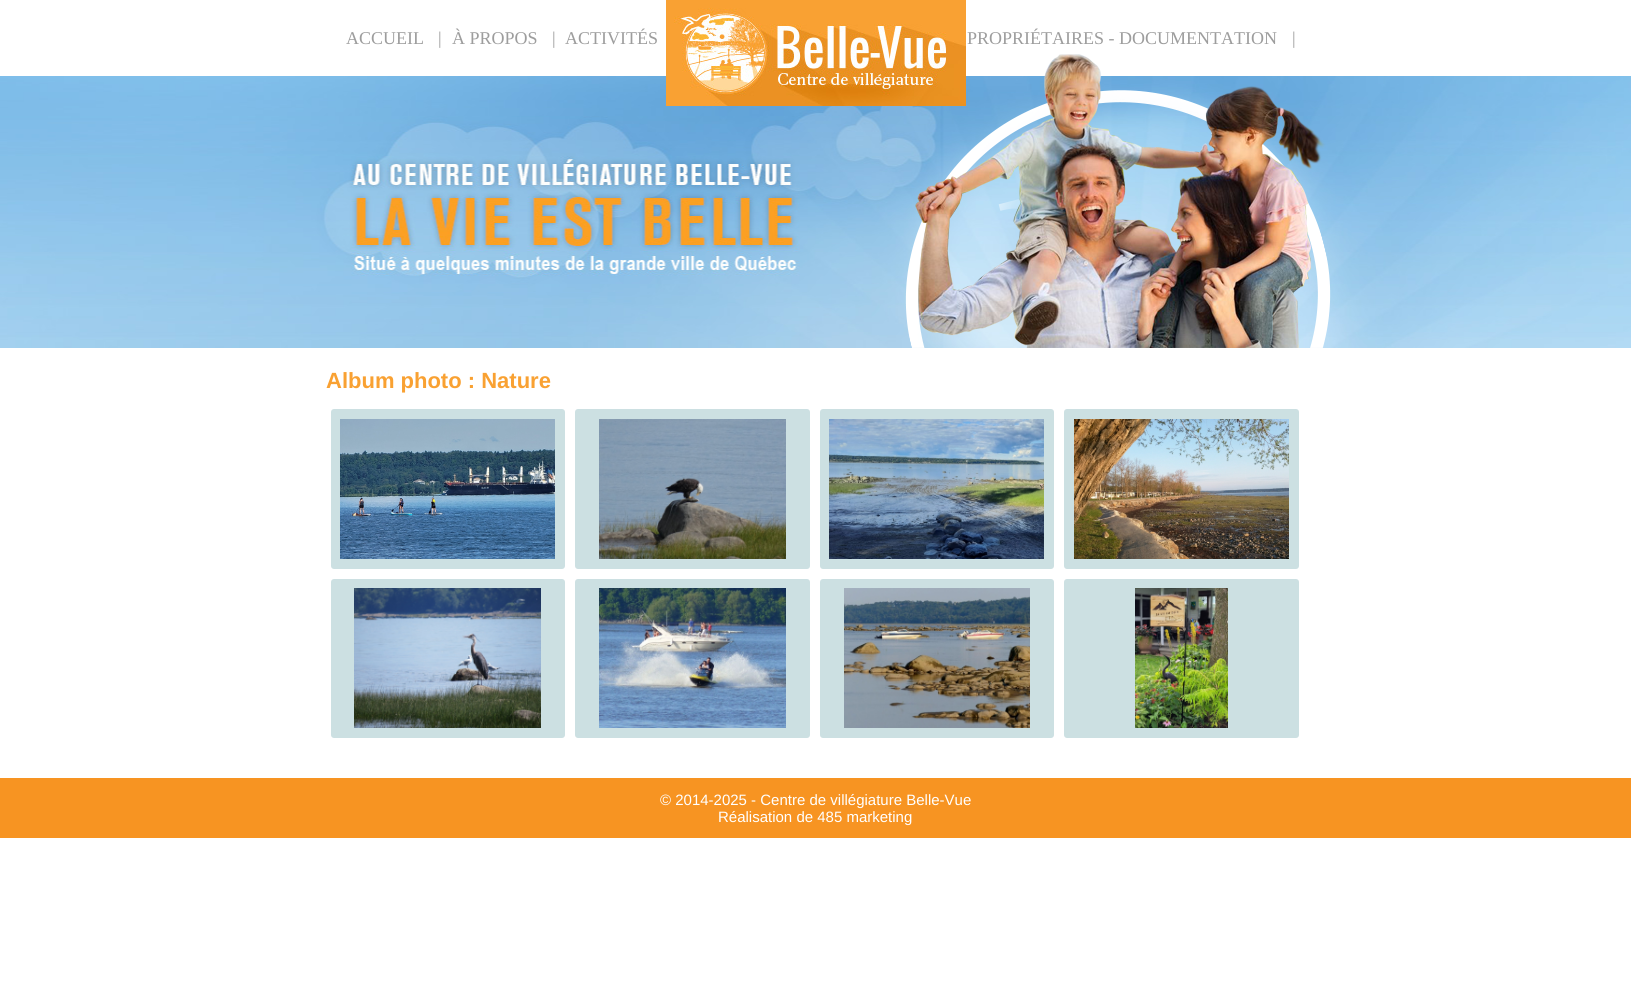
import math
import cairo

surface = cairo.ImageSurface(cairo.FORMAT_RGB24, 1631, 990)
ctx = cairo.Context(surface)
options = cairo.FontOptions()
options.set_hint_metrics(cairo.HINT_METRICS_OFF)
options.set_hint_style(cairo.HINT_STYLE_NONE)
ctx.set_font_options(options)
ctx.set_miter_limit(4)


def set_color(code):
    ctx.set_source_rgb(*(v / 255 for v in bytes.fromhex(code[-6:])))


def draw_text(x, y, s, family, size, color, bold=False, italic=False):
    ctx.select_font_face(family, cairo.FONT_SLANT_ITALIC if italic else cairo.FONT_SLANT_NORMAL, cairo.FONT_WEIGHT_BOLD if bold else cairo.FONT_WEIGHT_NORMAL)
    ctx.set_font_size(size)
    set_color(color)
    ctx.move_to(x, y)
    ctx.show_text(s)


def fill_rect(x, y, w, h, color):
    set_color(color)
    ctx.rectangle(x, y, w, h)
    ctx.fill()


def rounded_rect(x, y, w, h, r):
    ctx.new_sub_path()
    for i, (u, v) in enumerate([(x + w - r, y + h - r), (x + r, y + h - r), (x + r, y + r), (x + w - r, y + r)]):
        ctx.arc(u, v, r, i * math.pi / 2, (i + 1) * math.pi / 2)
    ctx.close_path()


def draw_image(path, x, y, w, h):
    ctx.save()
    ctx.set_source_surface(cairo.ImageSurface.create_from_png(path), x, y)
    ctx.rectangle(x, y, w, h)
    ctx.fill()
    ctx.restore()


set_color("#ffffff")
ctx.paint()
draw_text(346, 44, "ACCUEIL", "Liberation Serif", 18, "#9d9d9d")
draw_text(438, 44, "|", "Liberation Serif", 18, "#9d9d9d")
draw_text(452, 44, "À PROPOS", "Liberation Serif", 18, "#9d9d9d")
draw_text(552, 44, "|", "Liberation Serif", 18, "#9d9d9d")
draw_text(565, 44, "ACTIVITÉS", "Liberation Serif", 18, "#9d9d9d")
draw_image("assets/img2.png", 0, 76, 1631, 272)
draw_image("assets/img1.png", 666, 0, 300, 106)
draw_text(967, 44, "PROPRIÉTAIRES - DOCUMENTATION", "Liberation Serif", 18, "#9d9d9d")
draw_text(1292, 44, "|", "Liberation Serif", 18, "#9d9d9d")
draw_image("assets/img3.png", 905, 54, 426, 294)
draw_text(326, 388, "Album photo : Nature", "Liberation Sans", 22, "#f9a132", bold=True)
set_color("#cce0e2")
rounded_rect(331, 409, 234, 160, 3)
ctx.fill()
draw_image("assets/img4.png", 340, 419, 215, 140)
rounded_rect(575, 409, 235, 160, 3)
ctx.fill()
draw_image("assets/img5.png", 599, 419, 187, 140)
rounded_rect(820, 409, 234, 160, 3)
ctx.fill()
draw_image("assets/img6.png", 829, 419, 215, 140)
rounded_rect(1064, 409, 235, 160, 3)
ctx.fill()
draw_image("assets/img7.png", 1074, 419, 215, 140)
rounded_rect(331, 579, 234, 159, 3)
ctx.fill()
draw_image("assets/img8.png", 354, 588, 187, 140)
rounded_rect(575, 579, 235, 159, 3)
ctx.fill()
draw_image("assets/img9.png", 599, 588, 187, 140)
rounded_rect(820, 579, 234, 159, 3)
ctx.fill()
draw_image("assets/img10.png", 844, 588, 186, 140)
rounded_rect(1064, 579, 235, 159, 3)
ctx.fill()
draw_image("assets/img11.png", 1135, 588, 93, 140)
fill_rect(0, 778, 1631, 60, "#f79422")
draw_text(660, 805, "© 2014-2025 - Centre de villégiature Belle-Vue", "Liberation Sans", 15, "#ffffff")
draw_text(718, 822, "Réalisation de 485 marketing", "Liberation Sans", 15, "#ffffff")
surface.write_to_png("output.png")
